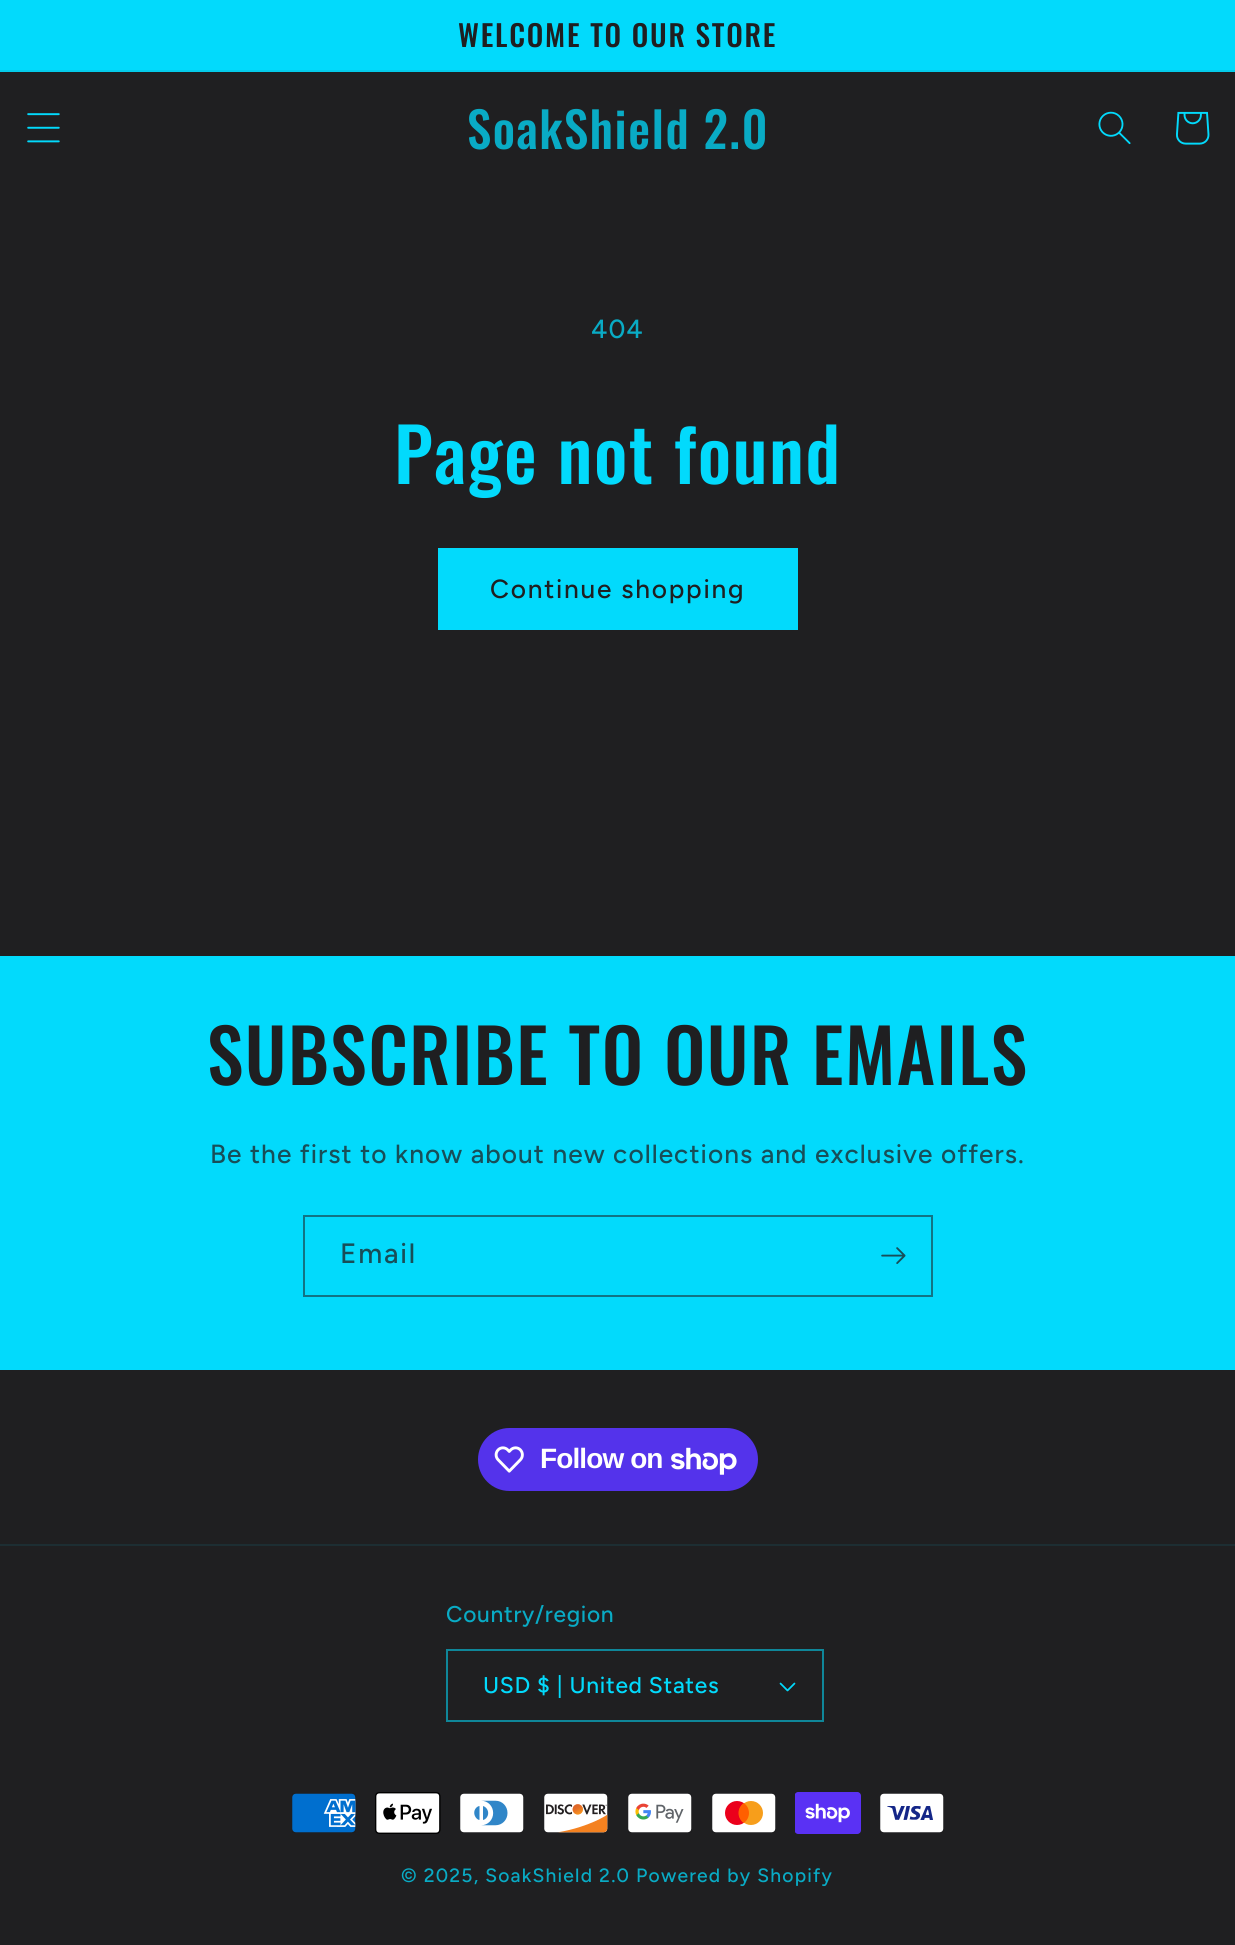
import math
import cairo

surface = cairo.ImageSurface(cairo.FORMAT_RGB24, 1235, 1945)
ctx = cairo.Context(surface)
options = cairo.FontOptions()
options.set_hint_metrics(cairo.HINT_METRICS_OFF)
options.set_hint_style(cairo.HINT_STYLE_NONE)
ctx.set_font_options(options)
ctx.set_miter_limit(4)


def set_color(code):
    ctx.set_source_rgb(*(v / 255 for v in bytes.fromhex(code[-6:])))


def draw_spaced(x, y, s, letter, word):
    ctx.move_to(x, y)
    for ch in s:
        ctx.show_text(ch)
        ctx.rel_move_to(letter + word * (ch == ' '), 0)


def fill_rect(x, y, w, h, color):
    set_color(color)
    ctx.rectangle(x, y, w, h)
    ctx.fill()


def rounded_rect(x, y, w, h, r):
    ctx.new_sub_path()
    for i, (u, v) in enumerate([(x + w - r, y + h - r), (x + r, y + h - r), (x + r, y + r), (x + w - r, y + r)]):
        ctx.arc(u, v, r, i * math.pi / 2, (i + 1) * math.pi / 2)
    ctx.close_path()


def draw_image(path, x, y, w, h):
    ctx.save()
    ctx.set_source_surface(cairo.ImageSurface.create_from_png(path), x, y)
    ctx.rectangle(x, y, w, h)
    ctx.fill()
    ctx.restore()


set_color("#1f1f21")
ctx.paint()
fill_rect(0, 0, 1235, 70, "#02dafc")
fill_rect(0, 70, 1235, 2, "#04cbea")
ctx.select_font_face("Oswald Medium")
ctx.set_font_size(29.4)
set_color("#1f1f21")
draw_spaced(458, 47, "WELCOME TO OUR STORE", 1.75, 0)
draw_image("assets/img1.png", 27, 113, 33, 30)
ctx.set_font_size(49)
set_color("#09abc5")
draw_spaced(467, 149, "SoakShield 2.0", 1.5, 0)
draw_image("assets/img2.png", 1098, 111, 33, 34)
draw_image("assets/img3.png", 1176, 111, 34, 34)
ctx.select_font_face("Figtree Medium")
ctx.set_font_size(26.25)
draw_spaced(591, 338, "404", 1.05, 0)
ctx.select_font_face("Oswald Medium")
ctx.set_font_size(73.5)
set_color("#02dafc")
draw_spaced(394, 484, "Page not found", 1.5, 0)
fill_rect(438, 548, 360, 82, "#02dafc")
ctx.select_font_face("Figtree Medium")
ctx.set_font_size(26.25)
set_color("#1f1f21")
draw_spaced(490, 598, "Continue shopping", 1.75, 0)
fill_rect(0, 956, 1235, 414, "#02dafc")
ctx.select_font_face("Oswald Medium")
ctx.set_font_size(73.5)
set_color("#1f1f21")
draw_spaced(207, 1085, "SUBSCRIBE TO OUR EMAILS", 1.5, 0)
ctx.select_font_face("Figtree Medium")
ctx.set_font_size(26.25)
set_color("#184e58")
draw_spaced(210, 1163, "Be the first to know about new collections and exclusive offers.", 1.05, 0)
ctx.rectangle(304, 1216, 628, 80)
set_color("#127384")
ctx.stroke()
ctx.set_font_size(28)
set_color("#184e58")
draw_spaced(340, 1263, "Email", 1.75, 0)
draw_image("assets/img4.png", 881, 1247, 25, 17)
set_color("#5433eb")
rounded_rect(478, 1428, 280, 63, 31.5)
ctx.fill()
draw_image("assets/img5.png", 494, 1446, 30, 27)
ctx.select_font_face("Liberation Sans", cairo.FONT_SLANT_NORMAL, cairo.FONT_WEIGHT_BOLD)
set_color("#ffffff")
draw_spaced(540, 1468, "Follow on", -0.9, 0)
draw_image("assets/img6.png", 671, 1447, 66, 28)
fill_rect(0, 1544, 1235, 2, "#1d2e33")
ctx.select_font_face("Figtree Medium")
ctx.set_font_size(22.75)
set_color("#09abc5")
draw_spaced(446, 1622, "Country/region", 0.7, 0)
draw_image("assets/img7.png", 779, 1682, 17, 10)
ctx.rectangle(447, 1650, 376, 71)
set_color("#0f8699")
ctx.stroke()
set_color("#02dafc")
draw_spaced(483, 1693, "USD $ | United States", 0.7, 0)
draw_image("assets/img8.png", 292, 1793, 64, 40)
draw_image("assets/img9.png", 375, 1792, 66, 42)
draw_image("assets/img10.png", 460, 1793, 64, 40)
draw_image("assets/img11.png", 544, 1793, 64, 40)
draw_image("assets/img12.png", 628, 1793, 64, 40)
draw_image("assets/img13.png", 712, 1793, 64, 40)
draw_image("assets/img14.png", 795, 1792, 66, 42)
draw_image("assets/img15.png", 880, 1793, 64, 40)
ctx.set_font_size(19.25)
set_color("#09abc5")
draw_spaced(401, 1882, "© 2025, SoakShield 2.0 Powered by Shopify", 1.2, 0)
surface.write_to_png("output.png")
